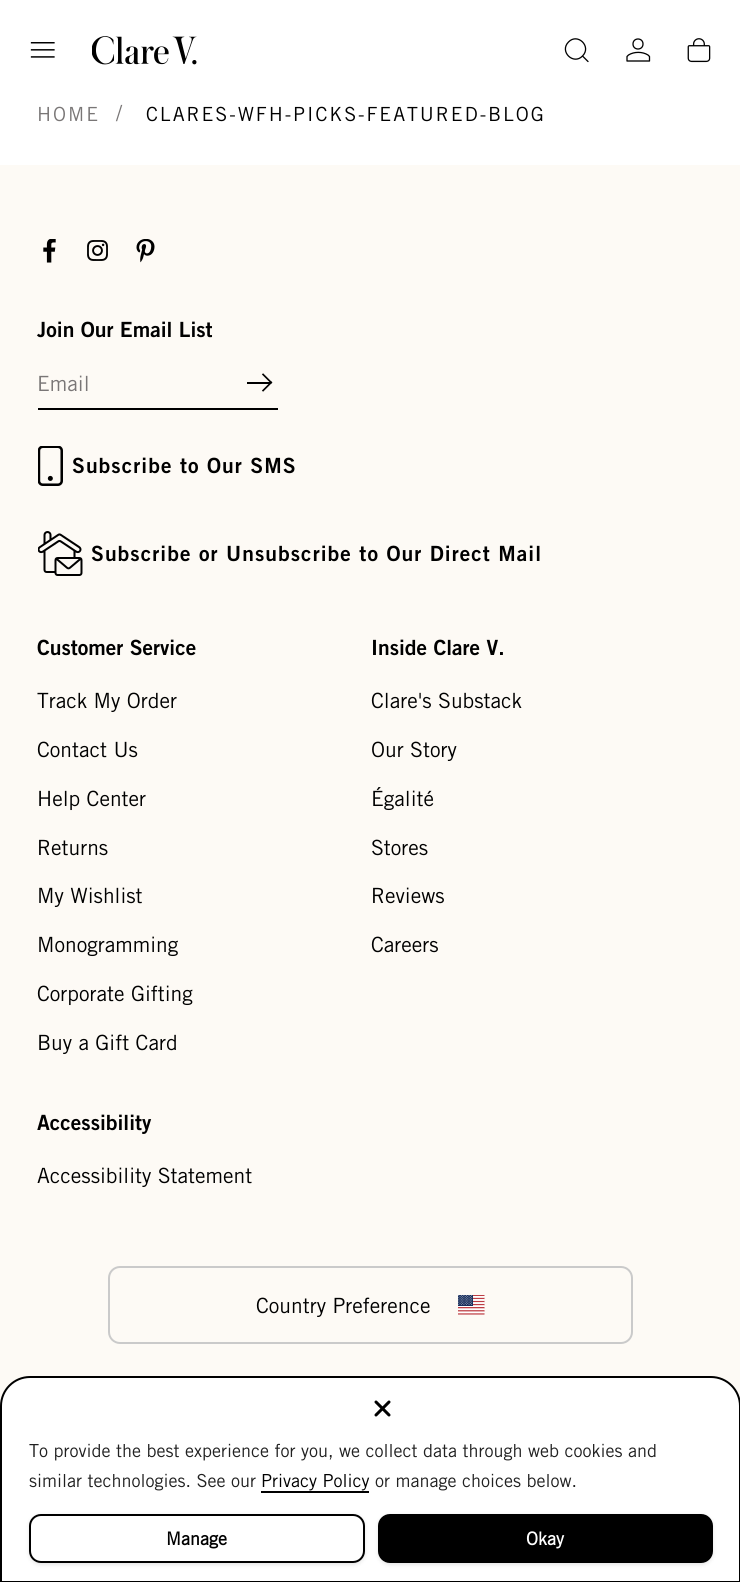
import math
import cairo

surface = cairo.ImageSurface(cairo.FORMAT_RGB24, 740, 1582)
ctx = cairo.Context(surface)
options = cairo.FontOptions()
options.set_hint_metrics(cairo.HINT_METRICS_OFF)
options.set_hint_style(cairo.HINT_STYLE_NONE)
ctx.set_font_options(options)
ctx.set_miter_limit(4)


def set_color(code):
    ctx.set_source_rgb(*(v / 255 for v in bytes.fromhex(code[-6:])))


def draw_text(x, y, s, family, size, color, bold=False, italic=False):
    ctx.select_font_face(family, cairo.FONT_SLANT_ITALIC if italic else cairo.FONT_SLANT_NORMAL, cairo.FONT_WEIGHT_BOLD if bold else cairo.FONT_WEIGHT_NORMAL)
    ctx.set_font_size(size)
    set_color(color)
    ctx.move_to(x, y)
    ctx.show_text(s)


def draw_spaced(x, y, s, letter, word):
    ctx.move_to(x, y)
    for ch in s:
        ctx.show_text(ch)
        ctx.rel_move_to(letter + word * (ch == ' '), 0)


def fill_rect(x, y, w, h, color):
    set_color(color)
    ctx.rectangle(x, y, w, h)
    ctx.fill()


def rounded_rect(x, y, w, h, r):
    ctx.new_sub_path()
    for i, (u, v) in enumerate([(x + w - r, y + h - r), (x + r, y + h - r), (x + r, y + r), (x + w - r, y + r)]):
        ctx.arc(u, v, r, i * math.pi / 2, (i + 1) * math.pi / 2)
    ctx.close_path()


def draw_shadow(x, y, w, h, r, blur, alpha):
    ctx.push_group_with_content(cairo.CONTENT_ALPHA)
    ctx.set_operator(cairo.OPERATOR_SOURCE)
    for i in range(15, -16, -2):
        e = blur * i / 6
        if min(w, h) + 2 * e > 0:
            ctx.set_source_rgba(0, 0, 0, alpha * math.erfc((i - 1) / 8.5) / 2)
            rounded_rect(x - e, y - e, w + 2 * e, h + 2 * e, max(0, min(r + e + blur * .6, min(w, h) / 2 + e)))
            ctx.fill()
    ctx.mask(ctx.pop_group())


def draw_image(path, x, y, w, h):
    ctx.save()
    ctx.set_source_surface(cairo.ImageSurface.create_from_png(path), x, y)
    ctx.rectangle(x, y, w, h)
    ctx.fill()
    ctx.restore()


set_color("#ffffff")
ctx.paint()
draw_image("assets/img1.png", 30, 42, 25, 16)
draw_image("assets/img2.png", 92, 36, 105, 29)
ctx.new_path()
ctx.move_to(588, 61.5)
ctx.line_to(582.5, 56)
ctx.move_to(582.5, 56)
ctx.curve_to(592, 46.5, 577.5, 32.5, 568.5, 42)
ctx.curve_to(559, 51.5, 573.5, 65.5, 582.5, 56)
ctx.close_path()
set_color("#000000")
ctx.set_line_width(1.3)
ctx.set_line_cap(cairo.LINE_CAP_ROUND)
ctx.set_line_join(cairo.LINE_JOIN_ROUND)
ctx.stroke()
ctx.arc(638, 44, 5, 0, 2 * math.pi)
ctx.set_line_cap(cairo.LINE_CAP_BUTT)
ctx.set_line_join(cairo.LINE_JOIN_MITER)
ctx.stroke()
ctx.new_path()
ctx.move_to(627, 56.5)
ctx.line_to(627, 61)
ctx.line_to(649.5, 61)
ctx.line_to(649.5, 56.5)
ctx.line_to(648, 55)
ctx.curve_to(642.5, 51.5, 634, 51.5, 628.5, 55)
ctx.close_path()
ctx.set_line_join(cairo.LINE_JOIN_ROUND)
ctx.stroke()
draw_image("assets/img3.png", 687, 38, 24, 25)
ctx.select_font_face("Trade Gothic")
ctx.set_font_size(19.5)
set_color("#797676")
draw_spaced(37, 121, "HOME", 1.95, 0)
draw_text(116, 121, "/", "Trade Gothic", 22, "#797676")
ctx.set_font_size(19.5)
set_color("#000000")
draw_spaced(146, 121, "CLARES-WFH-PICKS-FEATURED-BLOG", 1.95, 0)
fill_rect(0, 165, 740, 1241, "#fdfaf5")
draw_image("assets/img4.png", 43, 239, 13, 24)
draw_image("assets/img5.png", 87, 240, 21, 21)
draw_image("assets/img6.png", 136, 239, 19, 24)
draw_text(37, 337, "Join Our Email List", "Trade Gothic", 21, "#000000", bold=True)
fill_rect(38, 408, 240, 2, "#000000")
draw_text(37, 391, "Email", "Trade Gothic", 21, "#797676")
draw_image("assets/img7.png", 247, 373, 26, 19)
draw_image("assets/img8.png", 38, 446, 25, 40)
ctx.select_font_face("Trade Gothic", cairo.FONT_SLANT_NORMAL, cairo.FONT_WEIGHT_BOLD)
set_color("#000000")
draw_spaced(72, 473, "Subscribe to Our SMS", 1.05, 0)
draw_image("assets/img9.png", 38, 531, 45, 45)
draw_spaced(91, 561, "Subscribe or Unsubscribe to Our Direct Mail", 1.05, 0)
draw_text(37, 655, "Customer Service", "Trade Gothic", 21, "#000000", bold=True)
draw_text(37, 708, "Track My Order", "Trade Gothic", 21, "#000000")
draw_text(37, 757, "Contact Us", "Trade Gothic", 21, "#000000")
draw_text(37, 806, "Help Center", "Trade Gothic", 21, "#000000")
draw_text(37, 855, "Returns", "Trade Gothic", 21, "#000000")
draw_text(37, 903, "My Wishlist", "Trade Gothic", 21, "#000000")
draw_text(37, 952, "Monogramming", "Trade Gothic", 21, "#000000")
draw_text(37, 1001, "Corporate Gifting", "Trade Gothic", 21, "#000000")
draw_text(37, 1050, "Buy a Gift Card", "Trade Gothic", 21, "#000000")
draw_text(371, 655, "Inside Clare V.", "Trade Gothic", 21, "#000000", bold=True)
draw_text(371, 708, "Clare's Substack", "Trade Gothic", 21, "#000000")
draw_text(371, 757, "Our Story", "Trade Gothic", 21, "#000000")
draw_text(371, 806, "Égalité", "Trade Gothic", 21, "#000000")
draw_text(371, 855, "Stores", "Trade Gothic", 21, "#000000")
draw_text(371, 903, "Reviews", "Trade Gothic", 21, "#000000")
draw_text(371, 952, "Careers", "Trade Gothic", 21, "#000000")
draw_text(37, 1130, "Accessibility", "Trade Gothic", 21, "#000000", bold=True)
draw_text(37, 1183, "Accessibility Statement", "Trade Gothic", 21, "#000000")
rounded_rect(109, 1267, 523, 76, 11)
set_color("#cacaca")
ctx.set_line_width(2)
ctx.set_line_join(cairo.LINE_JOIN_MITER)
ctx.stroke()
draw_text(256, 1313, "Country Preference", "Trade Gothic", 21, "#000000")
draw_image("assets/img10.png", 458, 1295, 27, 20)
set_color("#ffffff")
ctx.new_path()
ctx.move_to(30, 1377)
ctx.line_to(711, 1377)
ctx.curve_to(727, 1377, 740, 1390, 740, 1406)
ctx.line_to(740, 1582)
ctx.line_to(1, 1582)
ctx.line_to(1, 1406)
ctx.curve_to(1, 1390, 14, 1377, 30, 1377)
ctx.close_path()
ctx.fill_preserve()
set_color("#000000")
ctx.stroke()
ctx.new_path()
ctx.move_to(389, 1402)
ctx.line_to(376, 1415)
ctx.move_to(376, 1402)
ctx.line_to(389, 1415)
ctx.set_line_width(3)
ctx.set_line_cap(cairo.LINE_CAP_ROUND)
ctx.set_line_join(cairo.LINE_JOIN_ROUND)
ctx.stroke()
draw_text(29, 1457, "To provide the best experience for you, we collect data through web cookies and", "Trade Gothic", 18, "#212121")
draw_text(29, 1487, "similar technologies. See our", "Trade Gothic", 18, "#212121")
draw_text(261, 1487, "Privacy Policy", "Trade Gothic", 18, "#000000")
fill_rect(261, 1491, 108, 2, "#000000")
draw_text(375, 1487, "or manage choices below.", "Trade Gothic", 18, "#212121")
set_color("#000000")
draw_shadow(29, 1515, 336, 50, 12, 2, 0.1)
set_color("#ffffff")
rounded_rect(30, 1515, 334, 47, 11)
ctx.fill_preserve()
set_color("#000000")
ctx.set_line_width(2)
ctx.set_line_cap(cairo.LINE_CAP_BUTT)
ctx.set_line_join(cairo.LINE_JOIN_MITER)
ctx.stroke()
draw_text(166, 1545, "Manage", "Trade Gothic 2", 18, "#000000", bold=True)
set_color("#000000")
draw_shadow(378, 1515, 335, 50, 12, 2, 0.1)
set_color("#000000")
rounded_rect(379, 1515, 333, 47, 11)
ctx.fill_preserve()
ctx.stroke()
draw_text(526, 1545, "Okay", "Trade Gothic 2", 18, "#ffffff", bold=True)
surface.write_to_png("output.png")
